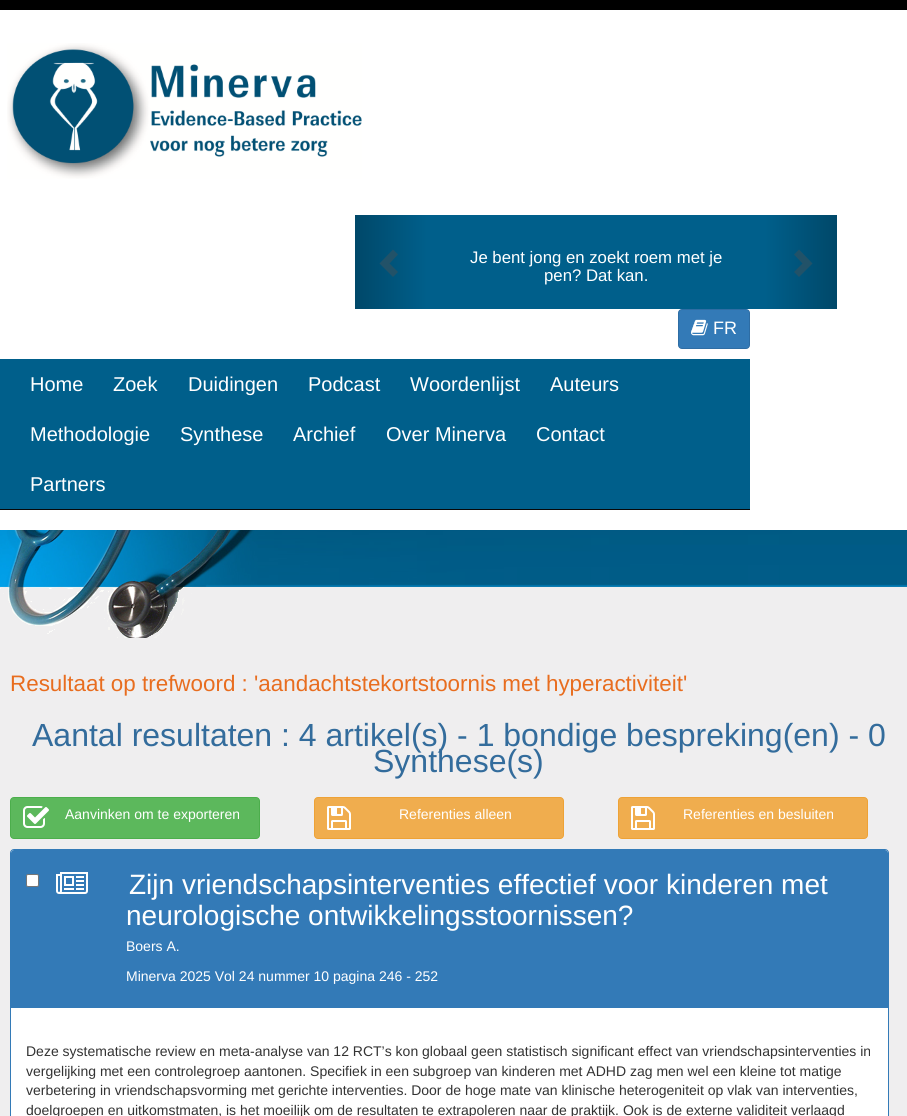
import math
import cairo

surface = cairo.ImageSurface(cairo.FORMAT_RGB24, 907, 1116)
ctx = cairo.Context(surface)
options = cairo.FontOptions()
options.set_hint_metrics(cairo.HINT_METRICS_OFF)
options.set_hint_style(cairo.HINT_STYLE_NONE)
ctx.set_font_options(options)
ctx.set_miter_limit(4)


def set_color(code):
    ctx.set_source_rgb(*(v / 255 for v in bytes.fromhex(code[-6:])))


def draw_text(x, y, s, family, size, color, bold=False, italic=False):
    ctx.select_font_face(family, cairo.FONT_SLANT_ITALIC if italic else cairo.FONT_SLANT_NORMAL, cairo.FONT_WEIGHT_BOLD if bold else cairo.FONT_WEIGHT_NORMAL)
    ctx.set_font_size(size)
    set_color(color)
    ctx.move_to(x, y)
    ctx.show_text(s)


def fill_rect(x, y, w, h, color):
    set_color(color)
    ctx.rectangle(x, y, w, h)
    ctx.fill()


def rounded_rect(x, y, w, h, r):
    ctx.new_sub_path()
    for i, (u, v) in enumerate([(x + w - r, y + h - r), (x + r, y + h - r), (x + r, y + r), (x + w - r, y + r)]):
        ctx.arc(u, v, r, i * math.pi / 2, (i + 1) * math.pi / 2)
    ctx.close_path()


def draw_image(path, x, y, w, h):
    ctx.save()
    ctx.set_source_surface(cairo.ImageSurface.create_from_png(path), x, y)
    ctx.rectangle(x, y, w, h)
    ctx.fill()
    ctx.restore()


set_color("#ffffff")
ctx.paint()
fill_rect(0, 0, 907, 10, "#000000")
draw_image("assets/img1.png", 7, 43, 355, 136)
gradient = cairo.LinearGradient(355, 262, 427, 262)
gradient.add_color_stop_rgba(0, 0, 0.282, 0.412, 1)
gradient.add_color_stop_rgba(1, 0, 0.373, 0.545, 1)
ctx.set_source(gradient)
ctx.rectangle(355, 215, 72, 94)
ctx.fill()
set_color("#225268")
ctx.new_path()
ctx.move_to(398, 254.5)
ctx.line_to(389.5, 263.5)
ctx.line_to(398, 272)
ctx.line_to(393, 277)
ctx.line_to(379.5, 263.5)
ctx.line_to(393, 249.5)
ctx.close_path()
ctx.fill()
fill_rect(427, 215, 338, 94, "#005f8b")
draw_text(470, 263, "Je bent jong en zoekt roem met je", "Liberation Sans", 16.75, "#ffffff")
draw_text(544, 281, "pen? Dat kan.", "Liberation Sans", 16.75, "#ffffff")
gradient = cairo.LinearGradient(765, 262, 837, 262)
gradient.add_color_stop_rgba(0, 0, 0.373, 0.545, 1)
gradient.add_color_stop_rgba(1, 0, 0.282, 0.412, 1)
ctx.set_source(gradient)
ctx.rectangle(765, 215, 72, 94)
ctx.fill()
set_color("#225268")
ctx.new_path()
ctx.move_to(812.5, 263.5)
ctx.line_to(799, 277)
ctx.line_to(794, 272)
ctx.line_to(802.5, 263.5)
ctx.line_to(794, 254.5)
ctx.line_to(799, 249.5)
ctx.close_path()
ctx.fill()
set_color("#337ab7")
rounded_rect(678.5, 309.5, 71, 39, 3.5)
ctx.fill_preserve()
set_color("#2e6da4")
ctx.set_line_width(1)
ctx.stroke()
draw_image("assets/img2.png", 691, 319, 17, 17)
draw_text(713, 334, "FR", "Liberation Sans", 18, "#ffffff")
fill_rect(0, 359, 750, 150, "#005f8b")
fill_rect(0, 509, 750, 1, "#080808")
draw_text(30, 391, "Home", "Liberation Sans", 20, "#ffffff")
draw_text(113, 391, "Zoek", "Liberation Sans", 20, "#ffffff")
draw_text(188, 391, "Duidingen", "Liberation Sans", 20, "#ffffff")
draw_text(308, 391, "Podcast", "Liberation Sans", 20, "#ffffff")
draw_text(410, 391, "Woordenlijst", "Liberation Sans", 20, "#ffffff")
draw_text(550, 391, "Auteurs", "Liberation Sans", 20, "#ffffff")
draw_text(30, 441, "Methodologie", "Liberation Sans", 20, "#ffffff")
draw_text(180, 441, "Synthese", "Liberation Sans", 20, "#ffffff")
draw_text(293, 441, "Archief", "Liberation Sans", 20, "#ffffff")
draw_text(386, 441, "Over Minerva", "Liberation Sans", 20, "#ffffff")
draw_text(536, 441, "Contact", "Liberation Sans", 20, "#ffffff")
draw_text(30, 491, "Partners", "Liberation Sans", 20, "#ffffff")
fill_rect(0, 587, 907, 529, "#efeeef")
draw_image("assets/img3.png", 0, 530, 258, 108)
draw_image("assets/img4.png", 258, 530, 649, 57)
draw_text(10, 691, "Resultaat op trefwoord : 'aandachtstekortstoornis met hyperactiviteit'", "Liberation Sans", 22.4, "#e86d1f")
draw_text(32, 746, "Aantal resultaten : 4 artikel(s) - 1 bondige bespreking(en) - 0", "Liberation Sans", 32, "#336c9c")
draw_text(373, 772, "Synthese(s)", "Liberation Sans", 32, "#336c9c")
set_color("#5cb85c")
rounded_rect(10.5, 797.5, 249, 41, 3.5)
ctx.fill_preserve()
set_color("#4cae4c")
ctx.stroke()
draw_image("assets/img5.png", 23, 806, 26, 22)
draw_text(65, 819, "Aanvinken om te exporteren", "Liberation Sans", 14, "#ffffff")
set_color("#f0ad4e")
rounded_rect(314.5, 797.5, 249, 41, 3.5)
ctx.fill_preserve()
set_color("#eea236")
ctx.stroke()
draw_image("assets/img6.png", 327, 806, 24, 24)
draw_text(399, 819, "Referenties alleen", "Liberation Sans", 14, "#ffffff")
set_color("#f0ad4e")
rounded_rect(618.5, 797.5, 249, 41, 3.5)
ctx.fill_preserve()
set_color("#eea236")
ctx.stroke()
draw_image("assets/img6.png", 631, 806, 24, 24)
draw_text(683, 819, "Referenties en besluiten", "Liberation Sans", 14, "#ffffff")
rounded_rect(10.5, 849.5, 878, 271, 3.5)
ctx.fill_preserve()
set_color("#337ab7")
ctx.stroke()
ctx.new_path()
ctx.move_to(14, 850)
ctx.line_to(885, 850)
ctx.curve_to(886.5, 850, 888, 851.5, 888, 853)
ctx.line_to(888, 1008)
ctx.line_to(11, 1008)
ctx.line_to(11, 853)
ctx.curve_to(11, 851.5, 12.5, 850, 14, 850)
ctx.close_path()
ctx.fill()
set_color("#ffffff")
rounded_rect(26.5, 874.5, 12, 12, 1.5)
ctx.fill_preserve()
set_color("#767676")
ctx.stroke()
draw_image("assets/img7.png", 56, 872, 32, 22)
draw_text(129, 894, "Zijn vriendschapsinterventies effectief voor kinderen met", "Liberation Sans", 28, "#ffffff")
draw_text(126, 925, "neurologische ontwikkelingsstoornissen?", "Liberation Sans", 28, "#ffffff")
draw_text(126, 951, "Boers A.", "Liberation Sans", 14, "#ffffff")
draw_text(126, 981, "Minerva 2025 Vol 24 nummer 10 pagina 246 - 252", "Liberation Sans", 14, "#ffffff")
draw_text(26, 1056, "Deze systematische review en meta-analyse van 12 RCT’s kon globaal geen statistisch significant effect van vriendschapsinterventies in", "Liberation Sans", 14, "#333333")
draw_text(26, 1076, "vergelijking met een controlegroep aantonen. Specifiek in een subgroep van kinderen met ADHD zag men wel een kleine tot matige", "Liberation Sans", 14, "#333333")
draw_text(26, 1095, "verbetering in vriendschapsvorming met gerichte interventies. Door de hoge mate van klinische heterogeniteit op vlak van interventies,", "Liberation Sans", 14, "#333333")
draw_text(26, 1115, "doelgroepen en uitkomstmaten, is het moeilijk om de resultaten te extrapoleren naar de praktijk. Ook is de externe validiteit verlaagd", "Liberation Sans", 14, "#333333")
surface.write_to_png("output.png")
